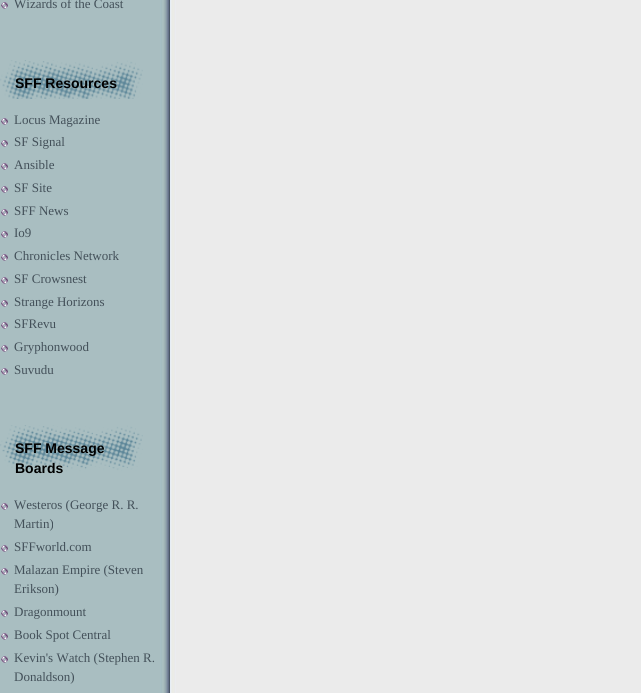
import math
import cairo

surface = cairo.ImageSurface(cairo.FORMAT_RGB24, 641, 693)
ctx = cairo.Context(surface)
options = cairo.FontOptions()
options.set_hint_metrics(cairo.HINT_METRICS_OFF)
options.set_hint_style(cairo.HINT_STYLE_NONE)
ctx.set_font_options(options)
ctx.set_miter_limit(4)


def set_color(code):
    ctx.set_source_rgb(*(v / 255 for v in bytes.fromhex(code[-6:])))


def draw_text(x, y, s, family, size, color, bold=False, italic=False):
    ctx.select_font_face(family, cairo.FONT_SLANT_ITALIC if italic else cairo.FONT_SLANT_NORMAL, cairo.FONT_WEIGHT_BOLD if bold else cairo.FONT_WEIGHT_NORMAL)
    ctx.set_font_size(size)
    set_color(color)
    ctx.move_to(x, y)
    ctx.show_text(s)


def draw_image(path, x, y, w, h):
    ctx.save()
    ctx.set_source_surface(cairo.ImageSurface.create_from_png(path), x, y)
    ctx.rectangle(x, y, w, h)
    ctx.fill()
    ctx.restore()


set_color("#ffffff")
ctx.paint()
draw_image("assets/img1.png", 0, 0, 641, 693)
draw_image("assets/img2.png", 1, 2, 7, 7)
draw_text(14, 8, "Wizards of the Coast", "Liberation Serif", 13, "#435059")
draw_image("assets/img3.png", 0, 60, 143, 39)
draw_text(15, 88, "SFF Resources", "Liberation Sans", 14, "#000000", bold=True)
draw_image("assets/img2.png", 1, 118, 7, 7)
draw_text(14, 124, "Locus Magazine", "Liberation Serif", 13, "#435059")
draw_image("assets/img2.png", 1, 140, 7, 7)
draw_text(14, 146, "SF Signal", "Liberation Serif", 13, "#435059")
draw_image("assets/img2.png", 1, 163, 7, 7)
draw_text(14, 169, "Ansible", "Liberation Serif", 13, "#435059")
draw_image("assets/img2.png", 1, 186, 7, 7)
draw_text(14, 192, "SF Site", "Liberation Serif", 13, "#435059")
draw_image("assets/img2.png", 1, 209, 7, 7)
draw_text(14, 215, "SFF News", "Liberation Serif", 13, "#435059")
draw_image("assets/img2.png", 1, 231, 7, 7)
draw_text(14, 237, "Io9", "Liberation Serif", 13, "#435059")
draw_image("assets/img2.png", 1, 254, 7, 7)
draw_text(14, 260, "Chronicles Network", "Liberation Serif", 13, "#435059")
draw_image("assets/img2.png", 1, 277, 7, 7)
draw_text(14, 283, "SF Crowsnest", "Liberation Serif", 13, "#435059")
draw_image("assets/img2.png", 1, 300, 7, 7)
draw_text(14, 306, "Strange Horizons", "Liberation Serif", 13, "#435059")
draw_image("assets/img2.png", 1, 322, 7, 7)
draw_text(14, 328, "SFRevu", "Liberation Serif", 13, "#435059")
draw_image("assets/img2.png", 1, 345, 7, 7)
draw_text(14, 351, "Gryphonwood", "Liberation Serif", 13, "#435059")
draw_image("assets/img2.png", 1, 368, 7, 7)
draw_text(14, 374, "Suvudu", "Liberation Serif", 13, "#435059")
draw_image("assets/img4.png", 0, 425, 143, 47)
draw_text(15, 453, "SFF Message", "Liberation Sans", 14, "#000000", bold=True)
draw_text(15, 473, "Boards", "Liberation Sans", 14, "#000000", bold=True)
draw_image("assets/img2.png", 1, 503, 7, 7)
draw_text(14, 509, "Westeros (George R. R.", "Liberation Serif", 13, "#435059")
draw_text(14, 528, "Martin)", "Liberation Serif", 13, "#435059")
draw_image("assets/img2.png", 1, 545, 7, 7)
draw_text(14, 551, "SFFworld.com", "Liberation Serif", 13, "#435059")
draw_image("assets/img2.png", 1, 568, 7, 7)
draw_text(14, 574, "Malazan Empire (Steven", "Liberation Serif", 13, "#435059")
draw_text(14, 593, "Erikson)", "Liberation Serif", 13, "#435059")
draw_image("assets/img2.png", 1, 610, 7, 7)
draw_text(14, 616, "Dragonmount", "Liberation Serif", 13, "#435059")
draw_image("assets/img2.png", 1, 633, 7, 7)
draw_text(14, 639, "Book Spot Central", "Liberation Serif", 13, "#435059")
draw_image("assets/img2.png", 1, 656, 7, 7)
draw_text(14, 662, "Kevin's Watch (Stephen R.", "Liberation Serif", 13, "#435059")
draw_text(14, 681, "Donaldson)", "Liberation Serif", 13, "#435059")
surface.write_to_png("output.png")
